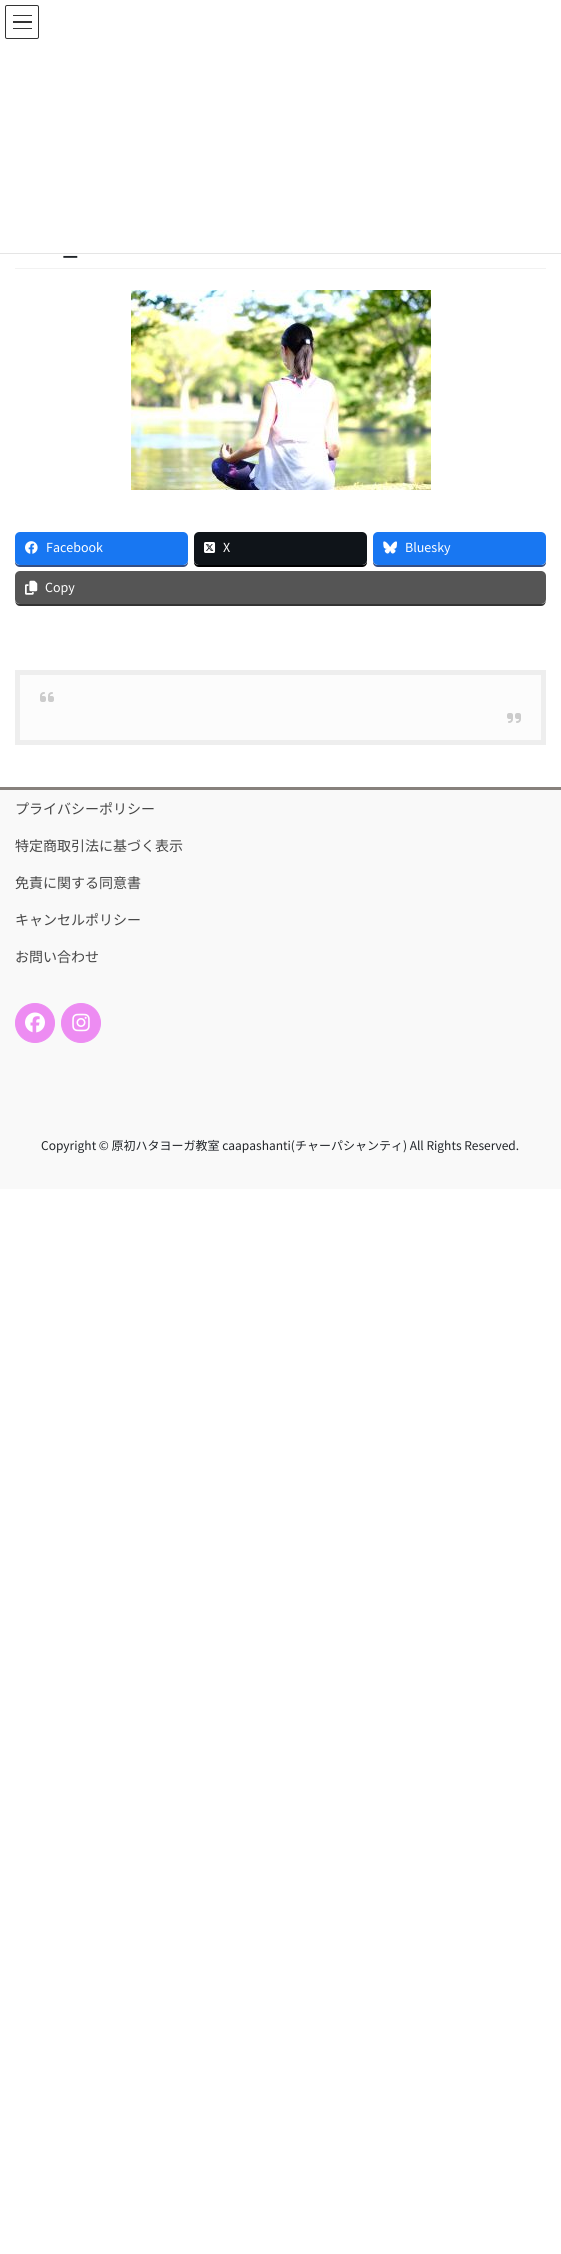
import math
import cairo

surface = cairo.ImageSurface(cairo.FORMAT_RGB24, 561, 2254)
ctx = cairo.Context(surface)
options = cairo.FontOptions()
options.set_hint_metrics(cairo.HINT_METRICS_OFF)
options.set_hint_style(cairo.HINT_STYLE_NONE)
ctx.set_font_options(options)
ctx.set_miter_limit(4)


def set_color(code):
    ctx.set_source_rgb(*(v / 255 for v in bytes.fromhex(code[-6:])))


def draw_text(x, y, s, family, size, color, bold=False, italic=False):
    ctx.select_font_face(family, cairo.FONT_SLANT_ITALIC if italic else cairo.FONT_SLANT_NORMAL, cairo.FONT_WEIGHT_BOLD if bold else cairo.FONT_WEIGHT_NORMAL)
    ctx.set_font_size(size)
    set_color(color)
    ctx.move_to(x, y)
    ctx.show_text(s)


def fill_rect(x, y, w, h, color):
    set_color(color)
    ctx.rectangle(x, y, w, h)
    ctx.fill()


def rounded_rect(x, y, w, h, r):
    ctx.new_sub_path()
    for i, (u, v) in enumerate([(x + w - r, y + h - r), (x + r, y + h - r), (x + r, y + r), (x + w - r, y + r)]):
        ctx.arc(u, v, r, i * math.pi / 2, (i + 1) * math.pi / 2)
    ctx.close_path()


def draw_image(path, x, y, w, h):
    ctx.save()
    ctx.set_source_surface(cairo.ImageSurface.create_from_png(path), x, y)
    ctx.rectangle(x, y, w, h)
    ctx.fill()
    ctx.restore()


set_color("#ffffff")
ctx.paint()
fill_rect(13, 15, 19, 1, "#333333")
fill_rect(13, 21, 19, 2, "#333333")
fill_rect(13, 28, 19, 1, "#333333")
rounded_rect(5.5, 5.5, 33, 33, 1.5)
ctx.set_line_width(1)
ctx.stroke()
fill_rect(0, 253, 561, 1, "#e5e5e5")
fill_rect(15, 268, 531, 1, "#f2f2f2")
draw_text(63, 254, "_", "Noto Sans JP Medium", 26, "#212529")
draw_image("assets/img1.png", 131, 290, 300, 200)
set_color("#344e84")
ctx.new_path()
ctx.move_to(15, 560)
ctx.line_to(15, 562)
ctx.curve_to(15, 565, 17, 567, 20, 567)
ctx.line_to(183, 567)
ctx.curve_to(186, 567, 188, 565, 188, 562)
ctx.line_to(188, 560)
ctx.curve_to(188, 563, 186, 565, 183, 565)
ctx.line_to(20, 565)
ctx.curve_to(17, 565, 15, 563, 15, 560)
ctx.close_path()
ctx.fill()
set_color("#1877f2")
rounded_rect(15, 532, 173, 33, 5)
ctx.fill()
draw_image("assets/img2.png", 25, 541, 13, 13)
draw_text(46, 552, "Facebook", "Noto Sans JP", 12.5, "#ffffff")
set_color("#000000")
ctx.new_path()
ctx.move_to(194, 560)
ctx.line_to(194, 562)
ctx.curve_to(194, 565, 196, 567, 199, 567)
ctx.line_to(362, 567)
ctx.curve_to(365, 567, 367, 565, 367, 562)
ctx.line_to(367, 560)
ctx.curve_to(367, 563, 365, 565, 362, 565)
ctx.line_to(199, 565)
ctx.curve_to(196, 565, 194, 563, 194, 560)
ctx.close_path()
ctx.fill()
set_color("#0f1419")
rounded_rect(194, 532, 173, 33, 5)
ctx.fill()
draw_image("assets/img3.png", 204, 542, 12, 11)
draw_text(223, 552, "X", "Noto Sans JP", 12.5, "#ffffff")
set_color("#344e84")
ctx.new_path()
ctx.move_to(373, 560)
ctx.line_to(373, 562)
ctx.curve_to(373, 565, 375, 567, 378, 567)
ctx.line_to(541, 567)
ctx.curve_to(544, 567, 546, 565, 546, 562)
ctx.line_to(546, 560)
ctx.curve_to(546, 563, 544, 565, 541, 565)
ctx.line_to(378, 565)
ctx.curve_to(375, 565, 373, 563, 373, 560)
ctx.close_path()
ctx.fill()
set_color("#1877f2")
rounded_rect(373, 532, 173, 33, 5)
ctx.fill()
draw_image("assets/img4.png", 383, 541, 14, 13)
draw_text(405, 552, "Bluesky", "Noto Sans JP", 12.5, "#ffffff")
set_color("#333333")
ctx.new_path()
ctx.move_to(15, 599)
ctx.curve_to(15, 602, 16, 606, 20, 606)
ctx.line_to(541, 606)
ctx.curve_to(545, 606, 546, 602, 546, 599)
ctx.curve_to(546, 602, 544, 604, 541, 604)
ctx.line_to(20, 604)
ctx.curve_to(17, 604, 15, 602, 15, 599)
ctx.close_path()
ctx.fill()
set_color("#555555")
rounded_rect(15, 571, 531, 33, 5)
ctx.fill()
draw_image("assets/img5.png", 25, 580, 13, 15)
draw_text(45, 592, "Copy", "Noto Sans JP", 12.5, "#ffffff")
set_color("#fcfcfc")
ctx.rectangle(17.5, 672.5, 526, 70)
ctx.fill_preserve()
set_color("#eeeeee")
ctx.set_line_width(5)
ctx.stroke()
draw_image("assets/img6.png", 40, 692, 14, 10)
draw_image("assets/img7.png", 507, 713, 14, 10)
fill_rect(0, 790, 561, 399, "#f9f9f9")
fill_rect(0, 787, 561, 3, "#87817c")
draw_text(15, 814, "プライバシーポリシー", "Noto Sans JP", 14, "#464646")
draw_text(15, 851, "特定商取引法に基づく表示", "Noto Sans JP", 14, "#464646")
draw_text(15, 888, "免責に関する同意書", "Noto Sans JP", 14, "#464646")
draw_text(15, 925, "キャンセルポリシー", "Noto Sans JP", 14, "#464646")
draw_text(15, 962, "お問い合わせ", "Noto Sans JP", 14, "#464646")
set_color("#ed8cf2")
ctx.new_path()
ctx.arc(35, 1023, 19.5, 0, 2 * math.pi)
ctx.fill_preserve()
ctx.set_line_width(1)
ctx.stroke()
draw_image("assets/img8.png", 25, 1012, 20, 21)
ctx.arc(81, 1023, 19.5, 0, 2 * math.pi)
ctx.fill_preserve()
ctx.stroke()
draw_image("assets/img9.png", 72, 1013, 18, 19)
draw_text(41, 1150, "Copyright © 原初ハタヨーガ教室 caapashanti(チャーパシャンティ) All Rights Reserved.", "Noto Sans JP", 12, "#212529")
surface.write_to_png("output.png")
